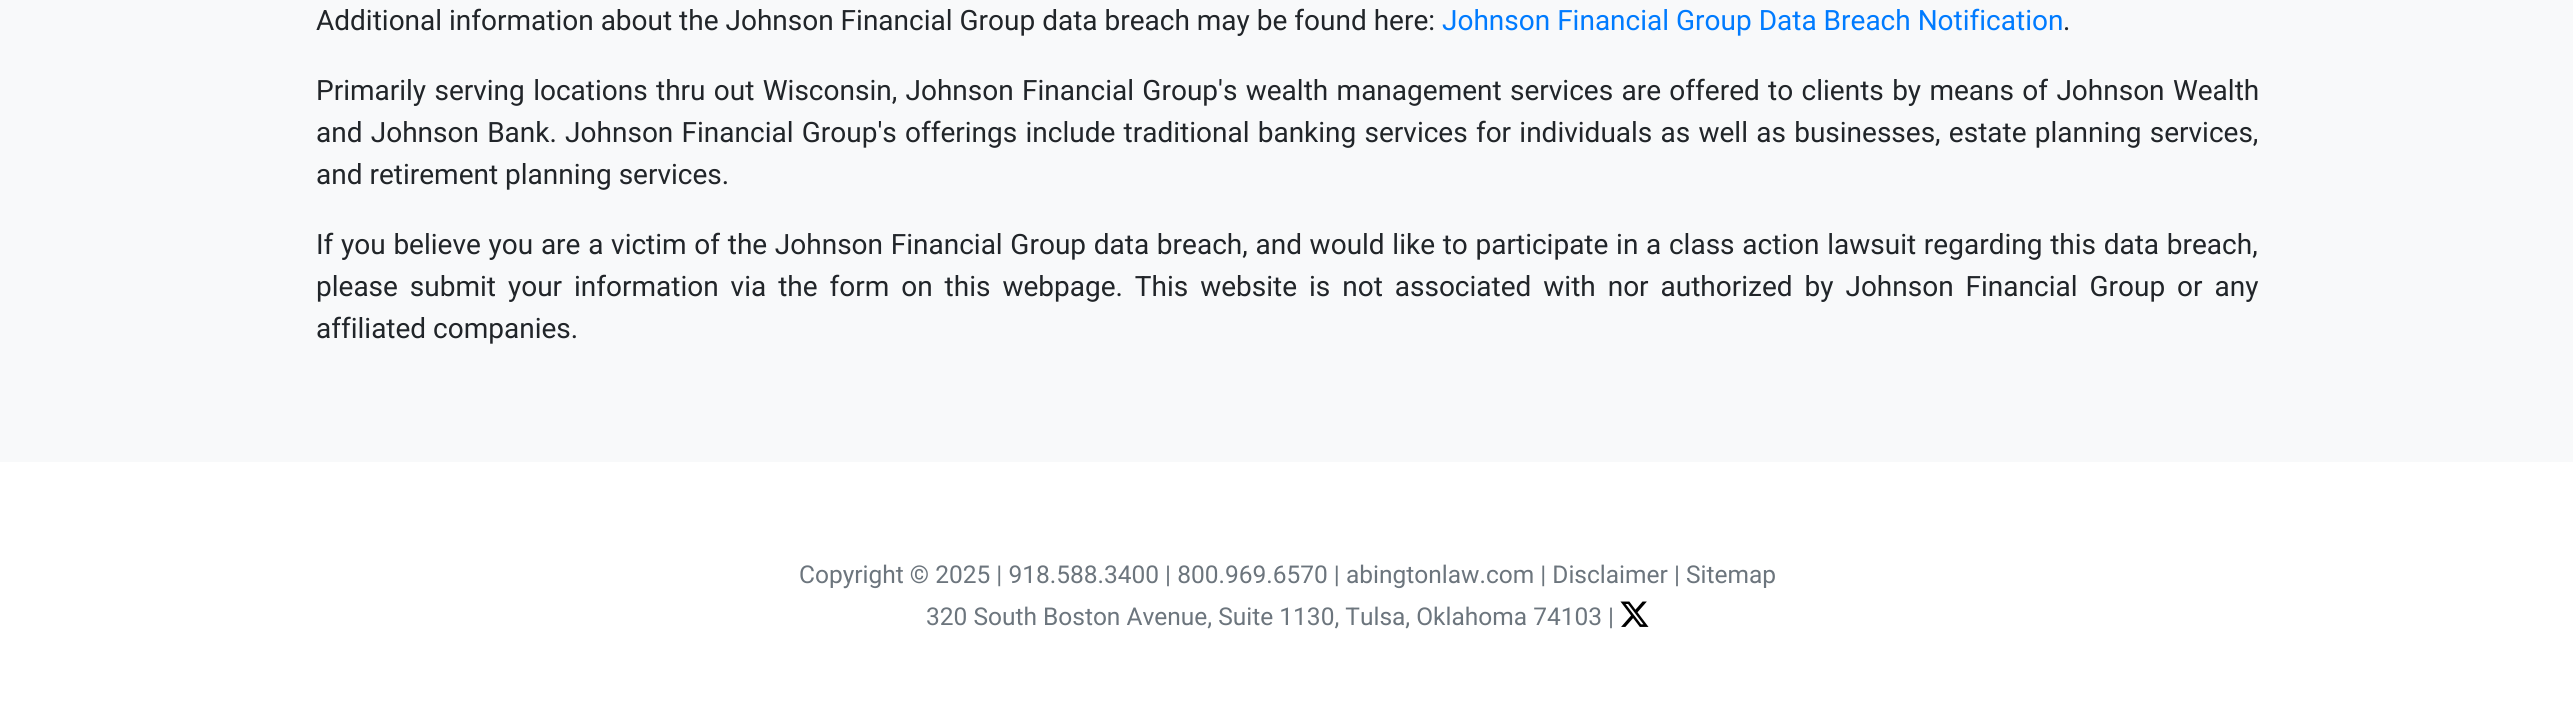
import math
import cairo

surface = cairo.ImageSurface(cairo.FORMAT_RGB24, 2573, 728)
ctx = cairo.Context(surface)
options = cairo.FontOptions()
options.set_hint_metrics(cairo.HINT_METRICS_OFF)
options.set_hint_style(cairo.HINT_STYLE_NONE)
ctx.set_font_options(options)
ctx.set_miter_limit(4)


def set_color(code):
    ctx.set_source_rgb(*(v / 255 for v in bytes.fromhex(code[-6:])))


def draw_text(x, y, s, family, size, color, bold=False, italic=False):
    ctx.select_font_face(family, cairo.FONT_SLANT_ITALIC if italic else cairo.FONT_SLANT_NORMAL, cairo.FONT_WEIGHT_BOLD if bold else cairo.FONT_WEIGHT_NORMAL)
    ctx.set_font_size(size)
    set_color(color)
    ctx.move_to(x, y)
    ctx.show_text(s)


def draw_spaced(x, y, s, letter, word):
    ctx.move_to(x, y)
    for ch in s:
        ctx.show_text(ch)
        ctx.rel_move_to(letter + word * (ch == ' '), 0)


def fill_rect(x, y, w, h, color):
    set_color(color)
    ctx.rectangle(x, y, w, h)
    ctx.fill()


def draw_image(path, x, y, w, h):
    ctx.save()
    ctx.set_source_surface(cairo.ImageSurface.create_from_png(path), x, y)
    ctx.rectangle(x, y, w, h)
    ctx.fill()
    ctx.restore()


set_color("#ffffff")
ctx.paint()
fill_rect(0, 0, 2573, 462, "#f8f9fa")
draw_text(316, 30, "Additional information about the Johnson Financial Group data breach may be found here:", "Roboto", 28, "#212529")
draw_text(1442, 30, "Johnson Financial Group Data Breach Notification", "Roboto", 28, "#007bff")
draw_text(2063, 30, ".", "Roboto", 28, "#212529")
draw_spaced(316, 100, "Primarily serving locations thru out Wisconsin, Johnson Financial Group's wealth management services are offered to clients by means of Johnson Wealth", 0, 1.4)
draw_spaced(316, 142, "and Johnson Bank. Johnson Financial Group's offerings include traditional banking services for individuals as well as businesses, estate planning services,", 0, 1.3)
draw_text(316, 184, "and retirement planning services.", "Roboto", 28, "#212529")
draw_spaced(316, 254, "If you believe you are a victim of the Johnson Financial Group data breach, and would like to participate in a class action lawsuit regarding this data breach,", 0, 0.75)
draw_spaced(316, 296, "please submit your information via the form on this webpage. This website is not associated with nor authorized by Johnson Financial Group or any", 0, 5)
draw_text(316, 338, "affiliated companies.", "Roboto", 28, "#212529")
draw_text(799, 583, "Copyright © 2025 | 918.588.3400 | 800.969.6570 | abingtonlaw.com | Disclaimer | Sitemap", "Roboto", 24.5, "#6c757d")
draw_text(926, 625, "320 South Boston Avenue, Suite 1130, Tulsa, Oklahoma 74103 |", "Roboto", 24.5, "#6c757d")
draw_image("assets/img1.png", 1620, 601, 29, 26)
surface.write_to_png("output.png")
